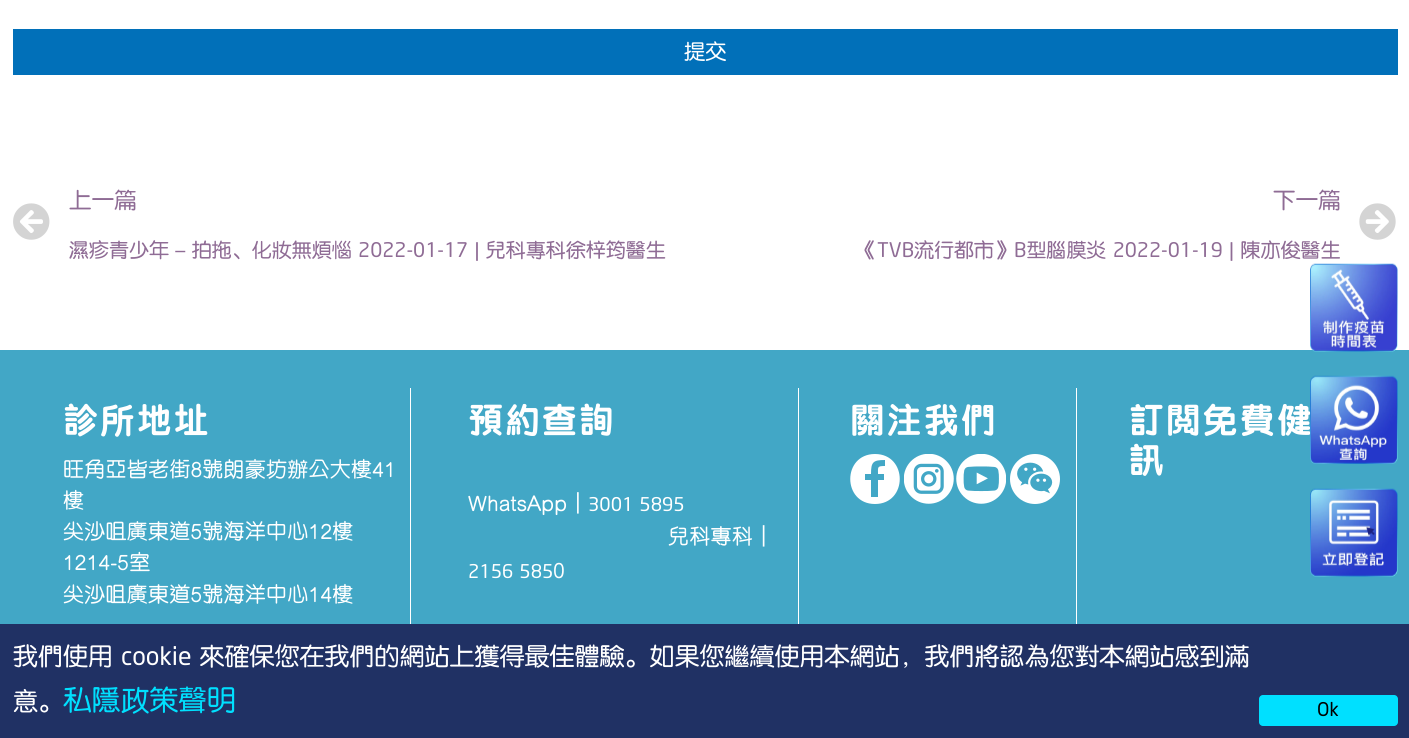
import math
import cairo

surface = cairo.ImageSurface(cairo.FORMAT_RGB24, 1409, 738)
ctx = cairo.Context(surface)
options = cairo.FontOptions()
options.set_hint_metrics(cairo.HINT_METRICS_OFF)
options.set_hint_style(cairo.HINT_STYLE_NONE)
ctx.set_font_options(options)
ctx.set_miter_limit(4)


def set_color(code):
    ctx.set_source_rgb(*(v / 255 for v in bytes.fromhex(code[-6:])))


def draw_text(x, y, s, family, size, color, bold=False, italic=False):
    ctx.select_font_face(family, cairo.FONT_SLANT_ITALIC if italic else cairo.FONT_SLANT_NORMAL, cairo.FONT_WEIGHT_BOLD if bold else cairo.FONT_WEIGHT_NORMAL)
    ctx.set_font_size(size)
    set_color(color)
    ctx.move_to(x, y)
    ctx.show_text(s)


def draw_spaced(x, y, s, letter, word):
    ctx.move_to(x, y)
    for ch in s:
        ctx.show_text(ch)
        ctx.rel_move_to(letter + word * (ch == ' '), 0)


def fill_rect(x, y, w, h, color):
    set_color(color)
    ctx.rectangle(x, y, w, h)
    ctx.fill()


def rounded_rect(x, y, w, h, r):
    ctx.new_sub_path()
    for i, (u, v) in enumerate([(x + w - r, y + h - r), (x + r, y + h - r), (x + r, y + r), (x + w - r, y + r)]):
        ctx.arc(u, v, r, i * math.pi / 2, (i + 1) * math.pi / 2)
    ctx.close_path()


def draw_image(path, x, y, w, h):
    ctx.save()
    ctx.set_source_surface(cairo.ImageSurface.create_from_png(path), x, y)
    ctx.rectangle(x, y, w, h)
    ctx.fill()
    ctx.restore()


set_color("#ffffff")
ctx.paint()
fill_rect(13, 29, 1385, 46, "#0170b9")
draw_text(684, 59, "提交", "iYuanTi", 21.25, "#ffffff")
draw_image("assets/img1.png", 13, 203, 37, 37)
draw_text(69, 208, "上一篇", "iYuanTi", 22.5, "#8f6c95")
draw_text(69, 257, "濕疹青少年 – 拍拖、化妝無煩惱 2022-01-17 | 兒科專科徐梓筠醫生", "iYuanTi", 20, "#8f6c95")
draw_text(1273, 208, "下一篇", "iYuanTi", 22.5, "#8f6c95")
draw_text(857, 257, "《TVB流行都市》B型腦膜炎 2022-01-19 | 陳亦俊醫生", "iYuanTi", 20, "#8f6c95")
draw_image("assets/img2.png", 1359, 203, 37, 37)
fill_rect(0, 350, 1409, 274, "#42a7c6")
fill_rect(410, 388, 1, 236, "#ffffff")
ctx.select_font_face("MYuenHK", cairo.FONT_SLANT_NORMAL, cairo.FONT_WEIGHT_BOLD)
ctx.set_font_size(35)
draw_spaced(63, 433, "診所地址", 2, 0)
draw_text(63, 477, "旺角亞皆老街8號朗豪坊辦公大樓41", "MYuenHK Medium", 21.25, "#ffffff")
draw_text(63, 508, "樓", "MYuenHK Medium", 21.25, "#ffffff")
draw_text(63, 539, "尖沙咀廣東道5號海洋中心12樓", "MYuenHK Medium", 21.25, "#ffffff")
draw_text(63, 570, "1214-5室", "MYuenHK Medium", 21.25, "#ffffff")
draw_text(63, 602, "尖沙咀廣東道5號海洋中心14樓", "MYuenHK Medium", 21.25, "#ffffff")
fill_rect(798, 388, 1, 236, "#ffffff")
ctx.select_font_face("MYuenHK", cairo.FONT_SLANT_NORMAL, cairo.FONT_WEIGHT_BOLD)
ctx.set_font_size(35)
draw_spaced(468, 433, "預約查詢", 2, 0)
draw_text(468, 511, "WhatsApp｜", "MYuenHK Medium", 21.25, "#ffffff")
draw_text(588, 511, "3001 5895", "iYuanTi", 18.75, "#ffffff")
draw_text(668, 544, "兒科專科｜", "MYuenHK Medium", 21.25, "#ffffff")
draw_text(468, 578, "2156 585", "iYuanTi", 18.75, "#ffffff")
draw_text(553, 578, "0", "MYuenHK Medium", 21.25, "#ffffff")
fill_rect(1076, 388, 1, 236, "#ffffff")
ctx.select_font_face("MYuenHK", cairo.FONT_SLANT_NORMAL, cairo.FONT_WEIGHT_BOLD)
ctx.set_font_size(35)
draw_spaced(850, 433, "關注我們", 2, 0)
ctx.new_path()
ctx.move_to(875, 454)
ctx.curve_to(842, 454, 842, 504, 875, 504)
ctx.curve_to(908, 504, 908, 454, 875, 454)
ctx.close_path()
ctx.move_to(885, 466)
ctx.curve_to(877, 466, 878, 467, 878, 474)
ctx.line_to(884, 474)
ctx.line_to(884, 480)
ctx.line_to(878, 480)
ctx.line_to(878, 497)
ctx.line_to(871, 497)
ctx.line_to(871, 480)
ctx.line_to(865, 480)
ctx.line_to(865, 474)
ctx.line_to(871, 474)
ctx.curve_to(871, 462, 873, 460, 885, 460)
ctx.close_path()
ctx.fill()
draw_image("assets/img3.png", 904, 454, 50, 50)
draw_image("assets/img4.png", 956, 454, 50, 50)
draw_image("assets/img5.png", 1010, 454, 50, 50)
draw_spaced(1129, 433, "訂閱免費健", 2, 0)
draw_spaced(1129, 473, "訊", 2, 0)
draw_image("assets/img6.png", 1310, 263, 88, 89)
draw_image("assets/img7.png", 1310, 375, 88, 89)
draw_image("assets/img8.png", 1310, 488, 88, 89)
fill_rect(0, 624, 1409, 114, "#203164")
draw_text(13, 665, "我們使用 cookie 來確保您在我們的網站上獲得最佳體驗。如果您繼續使用本網站，我們將認為您對本網站感到滿", "iYuanTi", 25, "#ffffff")
draw_text(13, 710, "意。", "iYuanTi", 25, "#ffffff")
draw_text(63, 710, "私隱政策聲明", "iYuanTi", 28.75, "#00e0ff")
rounded_rect(1259, 695, 139, 31, 4)
ctx.fill()
draw_text(1317, 716, "Ok", "iYuanTi", 18.75, "#000000")
surface.write_to_png("output.png")
